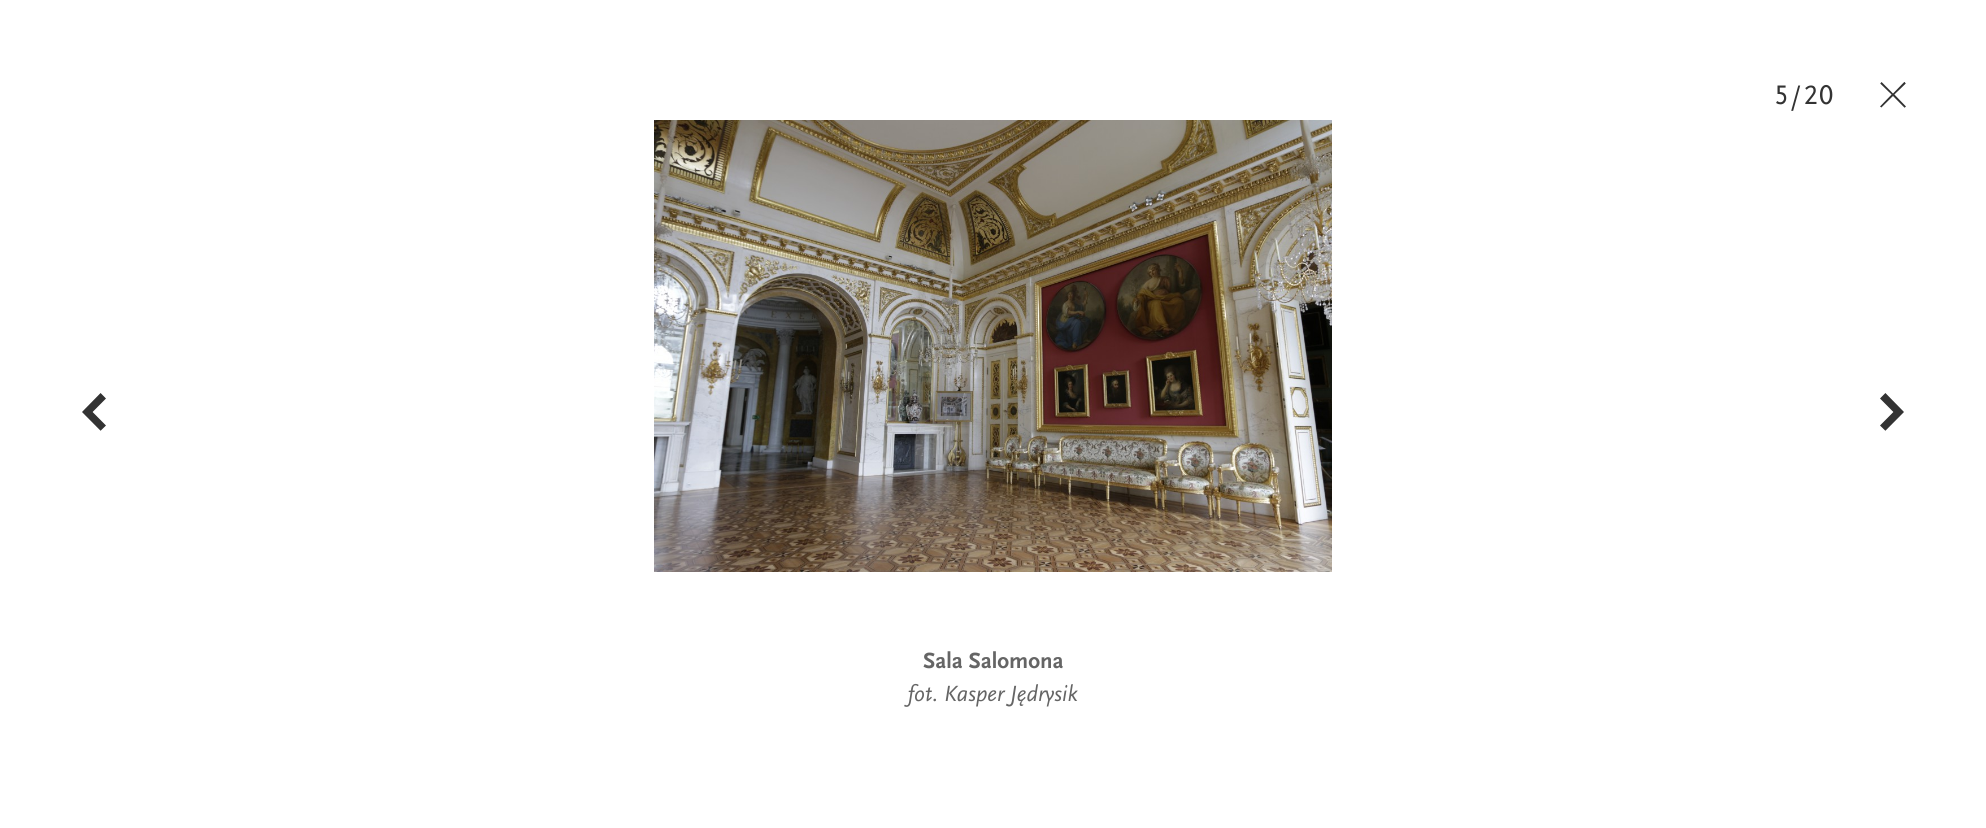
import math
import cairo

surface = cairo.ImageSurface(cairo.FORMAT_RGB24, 1986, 828)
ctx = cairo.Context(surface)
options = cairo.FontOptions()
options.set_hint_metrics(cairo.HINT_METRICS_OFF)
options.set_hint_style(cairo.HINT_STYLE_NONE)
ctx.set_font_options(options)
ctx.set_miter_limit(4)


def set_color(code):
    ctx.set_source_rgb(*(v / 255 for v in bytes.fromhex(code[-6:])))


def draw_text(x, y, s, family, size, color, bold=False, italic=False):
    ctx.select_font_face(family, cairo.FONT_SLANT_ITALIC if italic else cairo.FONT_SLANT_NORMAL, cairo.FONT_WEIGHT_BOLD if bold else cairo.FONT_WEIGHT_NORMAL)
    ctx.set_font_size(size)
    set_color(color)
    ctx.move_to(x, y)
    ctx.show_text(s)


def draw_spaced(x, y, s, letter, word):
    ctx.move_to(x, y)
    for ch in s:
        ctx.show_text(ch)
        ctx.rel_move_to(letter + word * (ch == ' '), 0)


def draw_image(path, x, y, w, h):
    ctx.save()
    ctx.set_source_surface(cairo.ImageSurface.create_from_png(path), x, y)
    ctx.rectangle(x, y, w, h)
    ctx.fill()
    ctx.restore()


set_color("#ffffff")
ctx.paint()
draw_image("assets/img1.png", 1880, 82, 26, 26)
draw_image("assets/img2.png", 82, 393, 24, 38)
draw_image("assets/img3.png", 1880, 393, 24, 38)
ctx.select_font_face("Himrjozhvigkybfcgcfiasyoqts")
ctx.set_font_size(28)
set_color("#333333")
draw_spaced(1774, 104, "5/20", 2, 0)
draw_image("assets/img4.png", 654, 120, 678, 452)
draw_text(923, 668, "Sala Salomona", "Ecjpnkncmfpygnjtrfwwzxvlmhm", 23, "#656565", bold=True)
draw_text(908, 701, "fot. Kasper Jędrysik", "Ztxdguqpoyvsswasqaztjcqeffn", 23, "#656565", italic=True)
surface.write_to_png("output.png")
